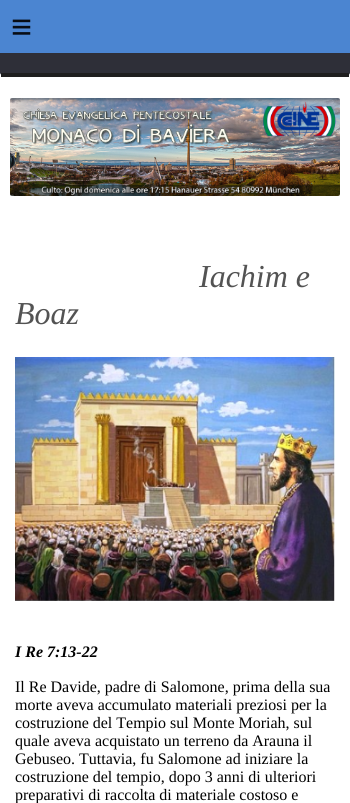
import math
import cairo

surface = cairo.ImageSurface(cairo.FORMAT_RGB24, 350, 803)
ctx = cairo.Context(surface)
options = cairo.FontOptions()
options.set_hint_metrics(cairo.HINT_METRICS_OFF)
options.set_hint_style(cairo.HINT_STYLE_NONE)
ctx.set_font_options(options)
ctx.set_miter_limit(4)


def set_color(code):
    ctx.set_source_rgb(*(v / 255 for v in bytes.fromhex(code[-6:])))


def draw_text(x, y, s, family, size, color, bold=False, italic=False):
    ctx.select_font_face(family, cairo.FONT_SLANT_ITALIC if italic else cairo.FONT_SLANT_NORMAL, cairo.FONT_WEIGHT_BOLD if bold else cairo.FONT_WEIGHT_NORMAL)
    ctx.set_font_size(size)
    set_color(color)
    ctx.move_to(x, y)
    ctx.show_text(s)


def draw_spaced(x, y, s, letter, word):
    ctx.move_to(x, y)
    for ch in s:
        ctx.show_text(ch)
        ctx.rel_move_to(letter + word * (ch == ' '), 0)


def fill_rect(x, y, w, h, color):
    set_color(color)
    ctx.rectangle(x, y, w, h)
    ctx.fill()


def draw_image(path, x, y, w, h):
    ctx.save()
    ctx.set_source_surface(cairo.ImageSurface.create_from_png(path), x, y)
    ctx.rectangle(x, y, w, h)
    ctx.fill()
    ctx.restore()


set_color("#2e2f38")
ctx.paint()
fill_rect(0, 0, 350, 53, "#4b85d1")
ctx.select_font_face("Liberation Sans")
ctx.set_font_size(36)
set_color("#080d15")
draw_spaced(11, 39, "≡", 10, 0)
set_color("#ffffff")
ctx.new_path()
ctx.move_to(2, 73)
ctx.line_to(348, 73)
ctx.curve_to(349, 73, 350, 74, 350, 75)
ctx.line_to(350, 803)
ctx.curve_to(350, 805, 348, 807, 346, 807)
ctx.line_to(4, 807)
ctx.curve_to(2, 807, 0, 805, 0, 803)
ctx.line_to(0, 75)
ctx.curve_to(0, 74, 1, 73, 2, 73)
ctx.close_path()
ctx.fill()
fill_rect(1, 73, 348, 4, "#1e1e1e")
draw_image("assets/img1.png", 10, 98, 330, 98)
draw_text(199, 287, "Iachim e", "Liberation Serif", 32, "#535353", italic=True)
draw_text(15, 324, "Boaz", "Liberation Serif", 32, "#535353", italic=True)
draw_image("assets/img2.png", 15, 357, 320, 244)
draw_text(15, 657, "I Re 7:13-22", "Liberation Serif", 16, "#000000", bold=True, italic=True)
draw_text(15, 692, "Il Re Davide, padre di Salomone, prima della sua", "Liberation Serif", 16, "#000000")
draw_text(15, 710, "morte aveva accumulato materiali preziosi per la", "Liberation Serif", 16, "#000000")
draw_text(15, 728, "costruzione del Tempio sul Monte Moriah, sul", "Liberation Serif", 16, "#000000")
draw_text(15, 746, "quale aveva acquistato un terreno da Arauna il", "Liberation Serif", 16, "#000000")
draw_text(15, 764, "Gebuseo. Tuttavia, fu Salomone ad iniziare la", "Liberation Serif", 16, "#000000")
draw_text(15, 782, "costruzione del tempio, dopo 3 anni di ulteriori", "Liberation Serif", 16, "#000000")
draw_text(15, 800, "preparativi di raccolta di materiale costoso e", "Liberation Serif", 16, "#000000")
surface.write_to_png("output.png")
